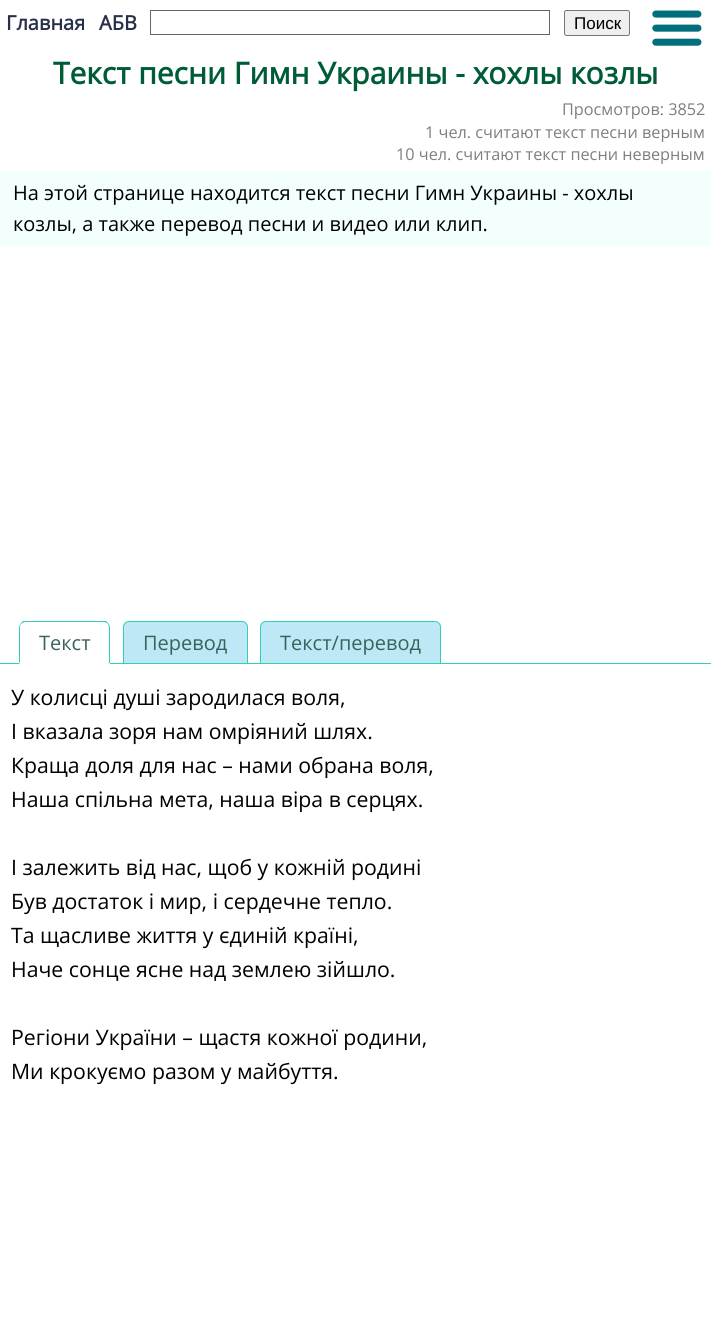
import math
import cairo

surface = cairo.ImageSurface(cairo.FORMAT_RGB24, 711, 1342)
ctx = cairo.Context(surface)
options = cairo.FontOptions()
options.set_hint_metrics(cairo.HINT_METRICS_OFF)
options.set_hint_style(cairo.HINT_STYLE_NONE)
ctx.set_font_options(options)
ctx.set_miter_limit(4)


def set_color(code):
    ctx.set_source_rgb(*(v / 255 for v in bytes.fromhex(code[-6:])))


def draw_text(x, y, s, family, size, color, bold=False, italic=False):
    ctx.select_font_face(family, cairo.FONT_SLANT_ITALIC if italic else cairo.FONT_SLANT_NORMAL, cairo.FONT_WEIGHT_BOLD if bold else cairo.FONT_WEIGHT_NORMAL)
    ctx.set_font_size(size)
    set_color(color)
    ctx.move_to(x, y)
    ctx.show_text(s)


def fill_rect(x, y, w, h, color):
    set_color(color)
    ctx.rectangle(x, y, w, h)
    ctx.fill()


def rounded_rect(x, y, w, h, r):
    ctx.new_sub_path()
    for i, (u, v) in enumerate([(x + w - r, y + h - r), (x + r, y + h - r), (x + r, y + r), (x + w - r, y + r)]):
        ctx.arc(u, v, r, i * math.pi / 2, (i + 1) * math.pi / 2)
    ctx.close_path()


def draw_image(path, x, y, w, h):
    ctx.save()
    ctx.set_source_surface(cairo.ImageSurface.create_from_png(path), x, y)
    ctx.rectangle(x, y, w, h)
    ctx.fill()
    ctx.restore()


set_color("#ffffff")
ctx.paint()
draw_text(6, 30, "Главная", "Open Sans", 20, "#283049", bold=True)
draw_text(99, 30, "АБВ", "Open Sans", 20, "#283049", bold=True)
ctx.rectangle(150.5, 10.5, 399, 24)
set_color("#666666")
ctx.set_line_width(1)
ctx.stroke()
set_color("#efefef")
rounded_rect(564.5, 10.5, 65, 25, 2)
ctx.fill_preserve()
set_color("#767676")
ctx.stroke()
draw_text(574, 29, "Поиск", "Liberation Sans", 17, "#000000")
draw_image("assets/img1.png", 652, 10, 50, 36)
draw_text(53, 84, "Текст песни Гимн Украины - хохлы козлы", "Open Sans", 30, "#005c36", bold=True)
draw_text(562, 115, "Просмотров: 3852", "Open Sans", 16.25, "#7e7e7e")
draw_text(425, 138, "1 чел. считают текст песни верным", "Open Sans", 16.25, "#7e7e7e")
draw_text(396, 160, "10 чел. считают текст песни неверным", "Open Sans", 16.25, "#7e7e7e")
fill_rect(0, 171, 711, 75, "#f3fffd")
draw_text(13, 200, "На этой странице находится текст песни Гимн Украины - хохлы", "Open Sans", 20, "#000000")
draw_text(13, 231, "козлы, а также перевод песни и видео или клип.", "Open Sans", 20, "#000000")
fill_rect(0, 663, 711, 1, "#31d0b5")
set_color("#ffffff")
ctx.new_path()
ctx.move_to(25, 621)
ctx.line_to(104, 621)
ctx.curve_to(107.5, 621, 110, 623.5, 110, 627)
ctx.line_to(110, 664)
ctx.line_to(19, 664)
ctx.line_to(19, 627)
ctx.curve_to(19, 623.5, 21.5, 621, 25, 621)
ctx.close_path()
ctx.fill()
set_color("#31d0b5")
ctx.new_path()
ctx.move_to(25, 622)
ctx.curve_to(24, 622, 22, 623, 21, 624)
ctx.line_to(21, 623)
ctx.line_to(23, 621)
ctx.line_to(106, 621)
ctx.line_to(108, 623)
ctx.line_to(108, 624)
ctx.curve_to(107, 623, 105, 622, 104, 622)
ctx.close_path()
ctx.fill()
ctx.new_path()
ctx.move_to(110, 664)
ctx.line_to(110, 628)
ctx.curve_to(110, 626, 109, 624, 108, 623)
ctx.line_to(108, 624)
ctx.curve_to(108, 625, 109, 626, 109, 628)
ctx.line_to(109, 662)
ctx.line_to(108, 662)
ctx.close_path()
ctx.fill()
set_color("#ffffff")
ctx.new_path()
ctx.move_to(110, 664)
ctx.line_to(19, 664)
ctx.line_to(20, 662)
ctx.line_to(108, 662)
ctx.close_path()
ctx.fill()
set_color("#31d0b5")
ctx.new_path()
ctx.move_to(19, 664)
ctx.line_to(19, 628)
ctx.curve_to(19, 626, 20, 624, 21, 623)
ctx.line_to(21, 624)
ctx.curve_to(20, 625, 20, 626, 20, 628)
ctx.line_to(20, 662)
ctx.close_path()
ctx.fill()
draw_text(39, 650, "Текст", "Open Sans", 20, "#3a625d")
set_color("#bee8f5")
ctx.new_path()
ctx.move_to(129, 621.5)
ctx.line_to(242, 621.5)
ctx.curve_to(245, 621.5, 247.5, 624, 247.5, 627)
ctx.line_to(247.5, 663.5)
ctx.line_to(123.5, 663.5)
ctx.line_to(123.5, 627)
ctx.curve_to(123.5, 624, 126, 621.5, 129, 621.5)
ctx.close_path()
ctx.fill_preserve()
set_color("#31d0b5")
ctx.stroke()
draw_text(143, 650, "Перевод", "Open Sans", 20, "#3a625d")
set_color("#bee8f5")
ctx.new_path()
ctx.move_to(266, 621.5)
ctx.line_to(435, 621.5)
ctx.curve_to(438, 621.5, 440.5, 624, 440.5, 627)
ctx.line_to(440.5, 663.5)
ctx.line_to(260.5, 663.5)
ctx.line_to(260.5, 627)
ctx.curve_to(260.5, 624, 263, 621.5, 266, 621.5)
ctx.close_path()
ctx.fill_preserve()
set_color("#31d0b5")
ctx.stroke()
draw_text(280, 650, "Текст/перевод", "Open Sans", 20, "#3a625d")
draw_text(11, 705, "У колисці душі зародилася воля,", "Open Sans", 21.25, "#000000")
draw_text(11, 739, "І вказала зоря нам омріяний шлях.", "Open Sans", 21.25, "#000000")
draw_text(11, 773, "Краща доля для нас – нами обрана воля,", "Open Sans", 21.25, "#000000")
draw_text(11, 807, "Наша спільна мета, наша віра в серцях.", "Open Sans", 21.25, "#000000")
draw_text(11, 875, "І залежить від нас, щоб у кожній родині", "Open Sans", 21.25, "#000000")
draw_text(11, 909, "Був достаток і мир, і сердечне тепло.", "Open Sans", 21.25, "#000000")
draw_text(11, 943, "Та щасливе життя у єдиній країні,", "Open Sans", 21.25, "#000000")
draw_text(11, 977, "Наче сонце ясне над землею зійшло.", "Open Sans", 21.25, "#000000")
draw_text(11, 1045, "Регіони України – щастя кожної родини,", "Open Sans", 21.25, "#000000")
draw_text(11, 1079, "Ми крокуємо разом у майбуття.", "Open Sans", 21.25, "#000000")
surface.write_to_png("output.png")
